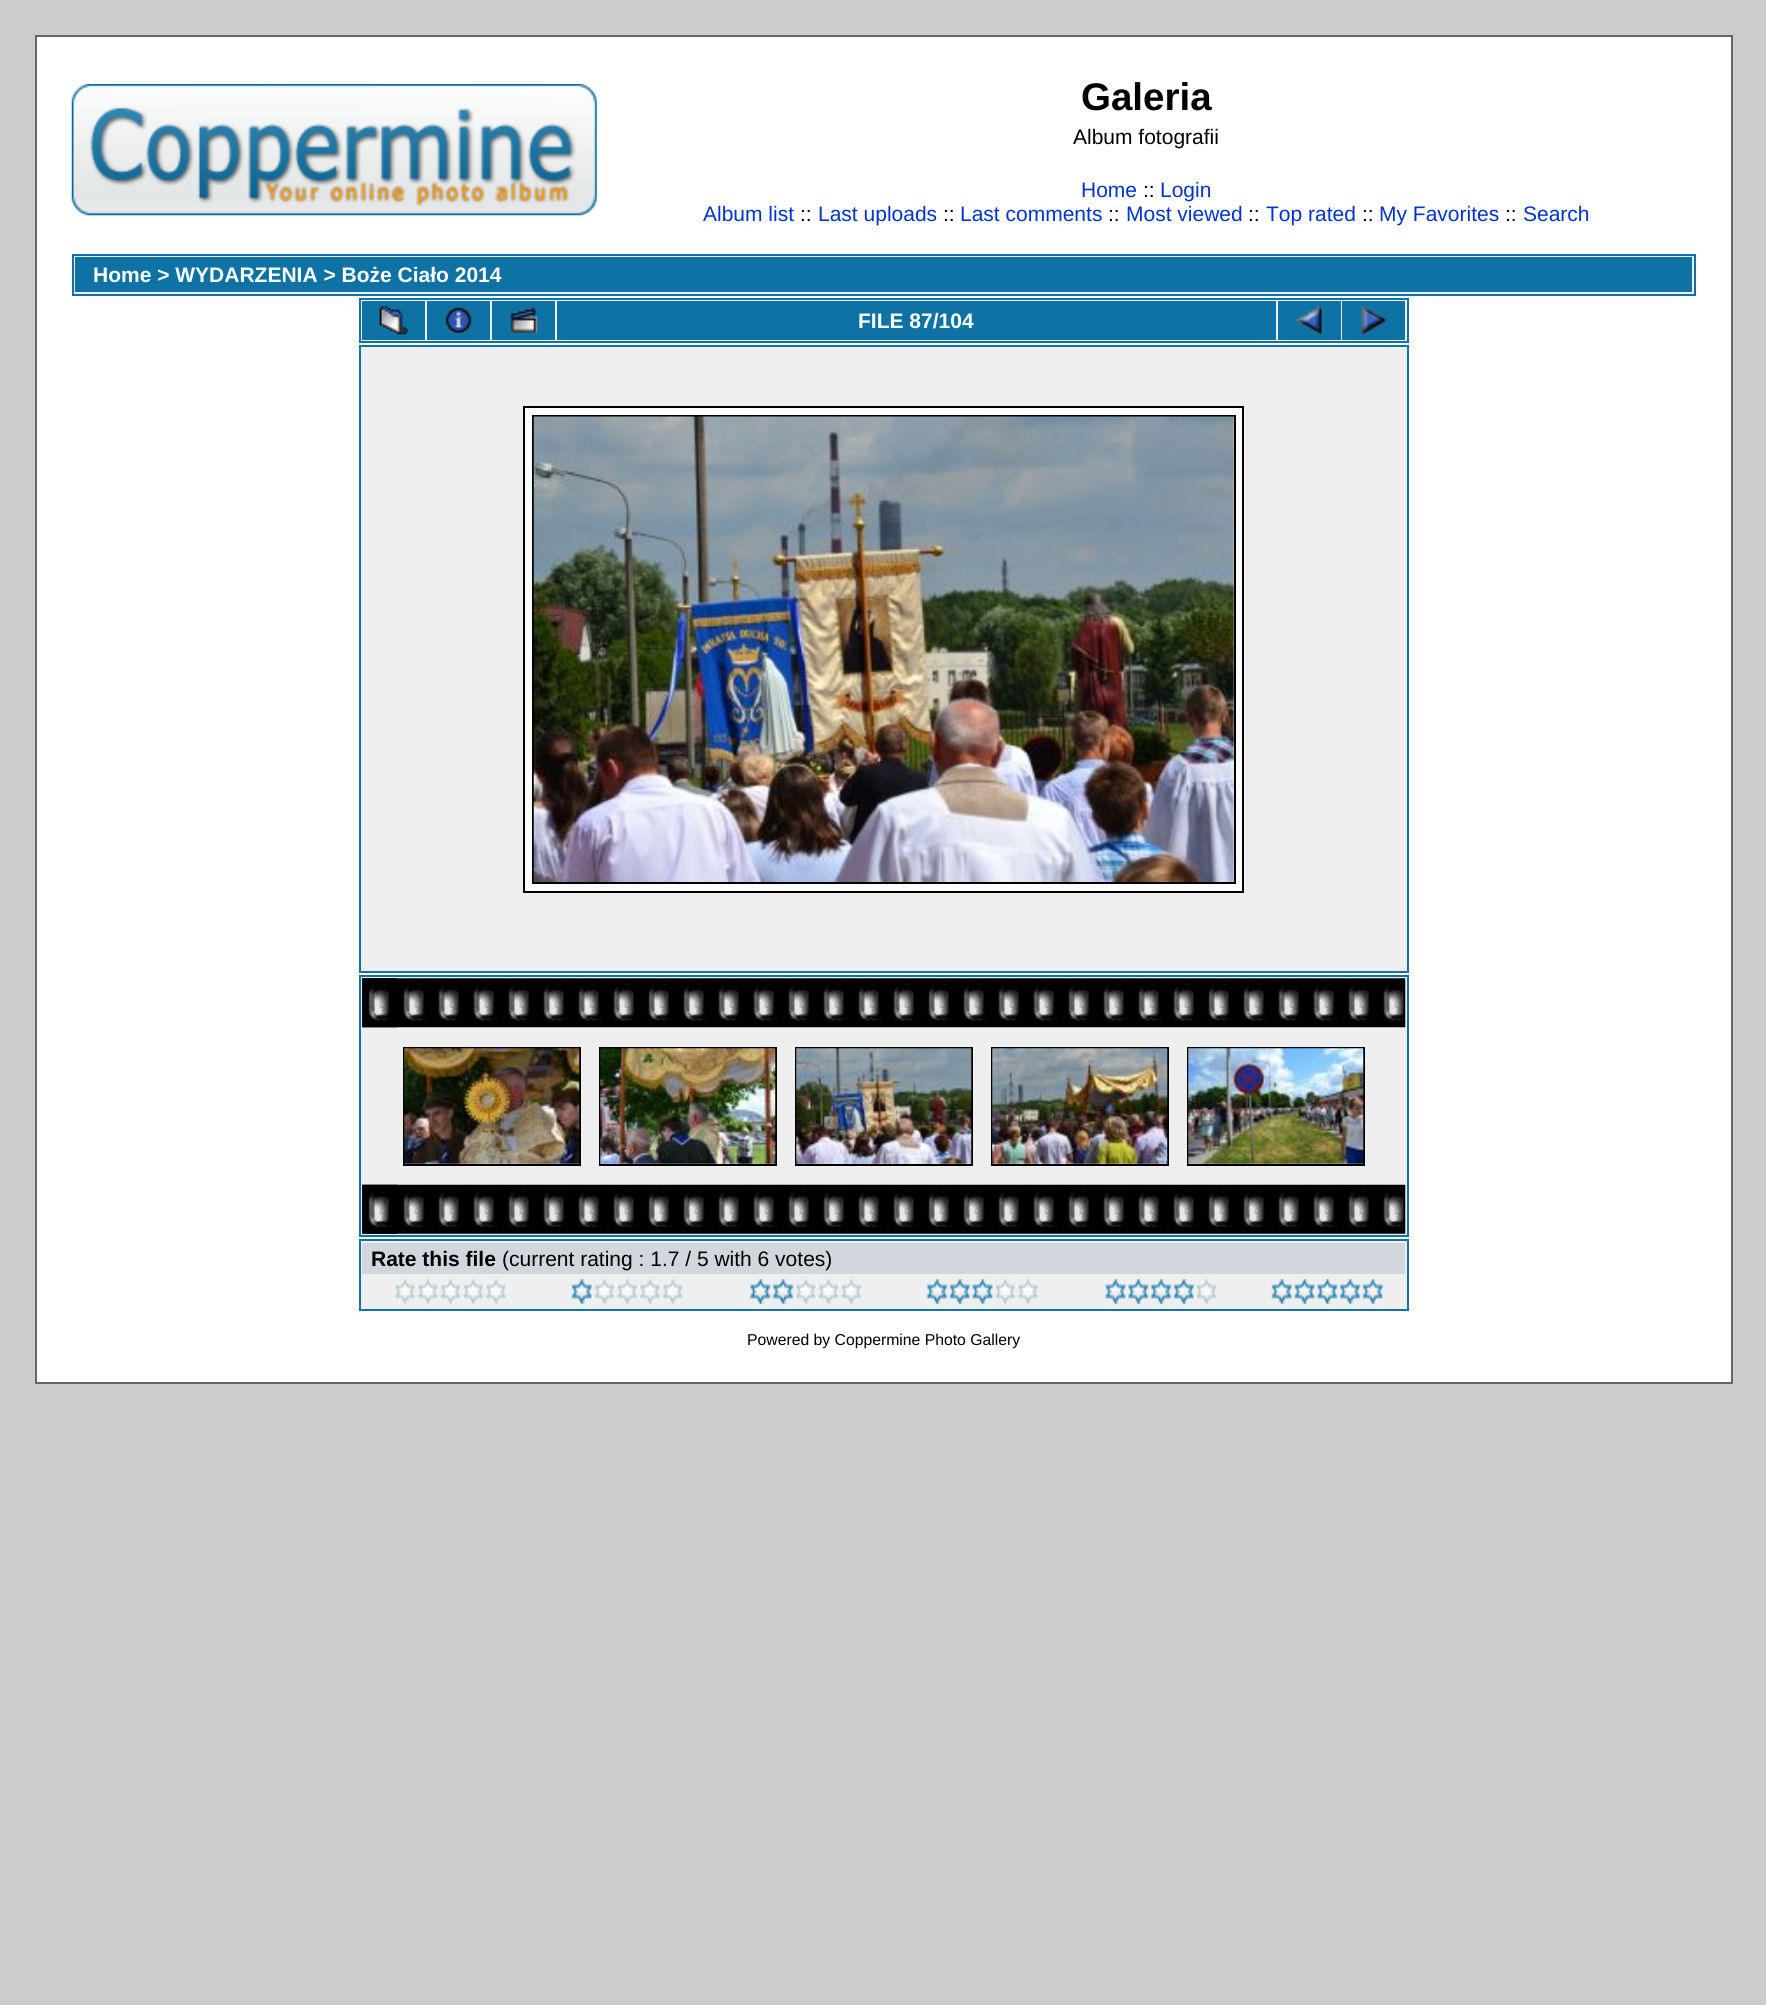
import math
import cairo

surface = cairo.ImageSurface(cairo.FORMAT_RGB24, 1766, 2005)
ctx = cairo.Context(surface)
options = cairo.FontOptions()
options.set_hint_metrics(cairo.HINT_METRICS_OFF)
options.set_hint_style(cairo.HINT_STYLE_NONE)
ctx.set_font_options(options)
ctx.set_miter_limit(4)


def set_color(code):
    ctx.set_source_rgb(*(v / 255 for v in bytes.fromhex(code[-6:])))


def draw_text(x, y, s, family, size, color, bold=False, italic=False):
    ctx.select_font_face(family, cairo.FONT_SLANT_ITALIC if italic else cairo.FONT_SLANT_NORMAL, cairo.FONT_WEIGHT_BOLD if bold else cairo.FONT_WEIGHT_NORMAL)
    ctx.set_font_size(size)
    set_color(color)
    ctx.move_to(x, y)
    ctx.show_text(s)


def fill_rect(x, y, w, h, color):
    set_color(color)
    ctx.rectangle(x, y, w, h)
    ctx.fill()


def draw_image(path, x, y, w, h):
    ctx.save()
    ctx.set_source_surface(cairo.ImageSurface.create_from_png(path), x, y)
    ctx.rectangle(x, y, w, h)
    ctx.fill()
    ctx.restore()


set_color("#cccccc")
ctx.paint()
set_color("#ffffff")
ctx.rectangle(36, 36, 1696, 1347)
ctx.fill_preserve()
set_color("#666666")
ctx.stroke()
draw_image("assets/img1.png", 71, 84, 526, 132)
draw_text(1081, 110, "Galeria", "Liberation Sans", 38.5, "#000000", bold=True)
draw_text(1073, 144, "Album fotografii", "Liberation Sans", 21, "#000000")
draw_text(1081, 197, "Home", "Liberation Sans", 21, "#0033cc")
draw_text(1143, 197, "::", "Liberation Sans", 21, "#000000")
draw_text(1160, 197, "Login", "Liberation Sans", 21, "#0033cc")
draw_text(703, 221, "Album list", "Liberation Sans", 21, "#0033cc")
draw_text(800, 221, "::", "Liberation Sans", 21, "#000000")
draw_text(818, 221, "Last uploads", "Liberation Sans", 21, "#0033cc")
draw_text(943, 221, "::", "Liberation Sans", 21, "#000000")
draw_text(960, 221, "Last comments", "Liberation Sans", 21, "#0033cc")
draw_text(1108, 221, "::", "Liberation Sans", 21, "#000000")
draw_text(1126, 221, "Most viewed", "Liberation Sans", 21, "#0033cc")
draw_text(1248, 221, "::", "Liberation Sans", 21, "#000000")
draw_text(1266, 221, "Top rated", "Liberation Sans", 21, "#0033cc")
draw_text(1362, 221, "::", "Liberation Sans", 21, "#000000")
draw_text(1379, 221, "My Favorites", "Liberation Sans", 21, "#0033cc")
draw_text(1505, 221, "::", "Liberation Sans", 21, "#000000")
draw_text(1523, 221, "Search", "Liberation Sans", 21, "#0033cc")
set_color("#efefef")
ctx.rectangle(73, 255, 1622, 40)
ctx.fill_preserve()
set_color("#0e72a4")
ctx.stroke()
fill_rect(75, 257, 1617, 35, "#0e72a4")
draw_text(93, 282, "Home > WYDARZENIA > Boże Ciało 2014", "Liberation Sans", 21, "#ffffff", bold=True)
set_color("#efefef")
ctx.rectangle(360, 299, 1048, 43)
ctx.fill_preserve()
set_color("#0e72a4")
ctx.stroke()
fill_rect(362, 301, 63, 39, "#0e72a4")
draw_image("assets/img2.png", 379, 306, 29, 29)
fill_rect(427, 301, 63, 39, "#0e72a4")
draw_image("assets/img3.png", 445, 307, 27, 26)
fill_rect(492, 301, 63, 39, "#0e72a4")
draw_image("assets/img4.png", 510, 307, 28, 26)
fill_rect(557, 301, 719, 39, "#0e72a4")
draw_text(858, 328, "FILE 87/104", "Liberation Sans", 21, "#ffffff", bold=True)
fill_rect(1278, 301, 63, 39, "#0e72a4")
draw_image("assets/img5.png", 1296, 306, 26, 29)
fill_rect(1342, 301, 63, 39, "#0e72a4")
draw_image("assets/img6.png", 1361, 306, 26, 29)
set_color("#efefef")
ctx.rectangle(360, 346, 1048, 626)
ctx.fill_preserve()
set_color("#0e72a4")
ctx.stroke()
set_color("#ffffff")
ctx.rectangle(524, 407, 719, 485)
ctx.fill_preserve()
set_color("#000000")
ctx.stroke()
ctx.rectangle(533, 416, 702, 467)
ctx.stroke()
draw_image("assets/img7.png", 533, 416, 701, 466)
set_color("#efefef")
ctx.rectangle(360, 976, 1048, 260)
ctx.fill_preserve()
set_color("#0e72a4")
ctx.stroke()
draw_image("assets/img8.png", 362, 978, 1044, 50)
draw_image("assets/img9.png", 362, 978, 36, 50)
ctx.rectangle(404, 1048, 176, 117)
set_color("#000000")
ctx.stroke()
draw_image("assets/img10.png", 404, 1048, 176, 116)
ctx.rectangle(600, 1048, 176, 117)
ctx.stroke()
draw_image("assets/img11.png", 600, 1048, 176, 116)
ctx.rectangle(796, 1048, 176, 117)
ctx.stroke()
draw_image("assets/img12.png", 796, 1048, 176, 116)
ctx.rectangle(992, 1048, 176, 117)
ctx.stroke()
draw_image("assets/img13.png", 992, 1048, 176, 116)
ctx.rectangle(1188, 1048, 176, 117)
ctx.stroke()
draw_image("assets/img14.png", 1188, 1048, 176, 116)
draw_image("assets/img15.png", 362, 1184, 1044, 50)
draw_image("assets/img16.png", 362, 1184, 36, 50)
set_color("#efefef")
ctx.rectangle(360, 1240, 1048, 70)
ctx.fill_preserve()
set_color("#0e72a4")
ctx.stroke()
fill_rect(362, 1243, 1043, 31, "#d1d7dc")
draw_text(371, 1266, "Rate this file", "Liberation Sans", 21, "#000000", bold=True)
draw_text(502, 1266, "(current rating : 1.7 / 5 with 6 votes)", "Liberation Sans", 21, "#000000")
draw_image("assets/img17.png", 394, 1279, 113, 25)
draw_image("assets/img18.png", 570, 1279, 114, 25)
draw_image("assets/img19.png", 749, 1279, 114, 25)
draw_image("assets/img20.png", 925, 1279, 114, 25)
draw_image("assets/img21.png", 1104, 1279, 114, 25)
draw_image("assets/img22.png", 1270, 1279, 114, 25)
draw_text(747, 1345, "Powered by Coppermine Photo Gallery", "Liberation Sans", 15.75, "#000000")
surface.write_to_png("output.png")
